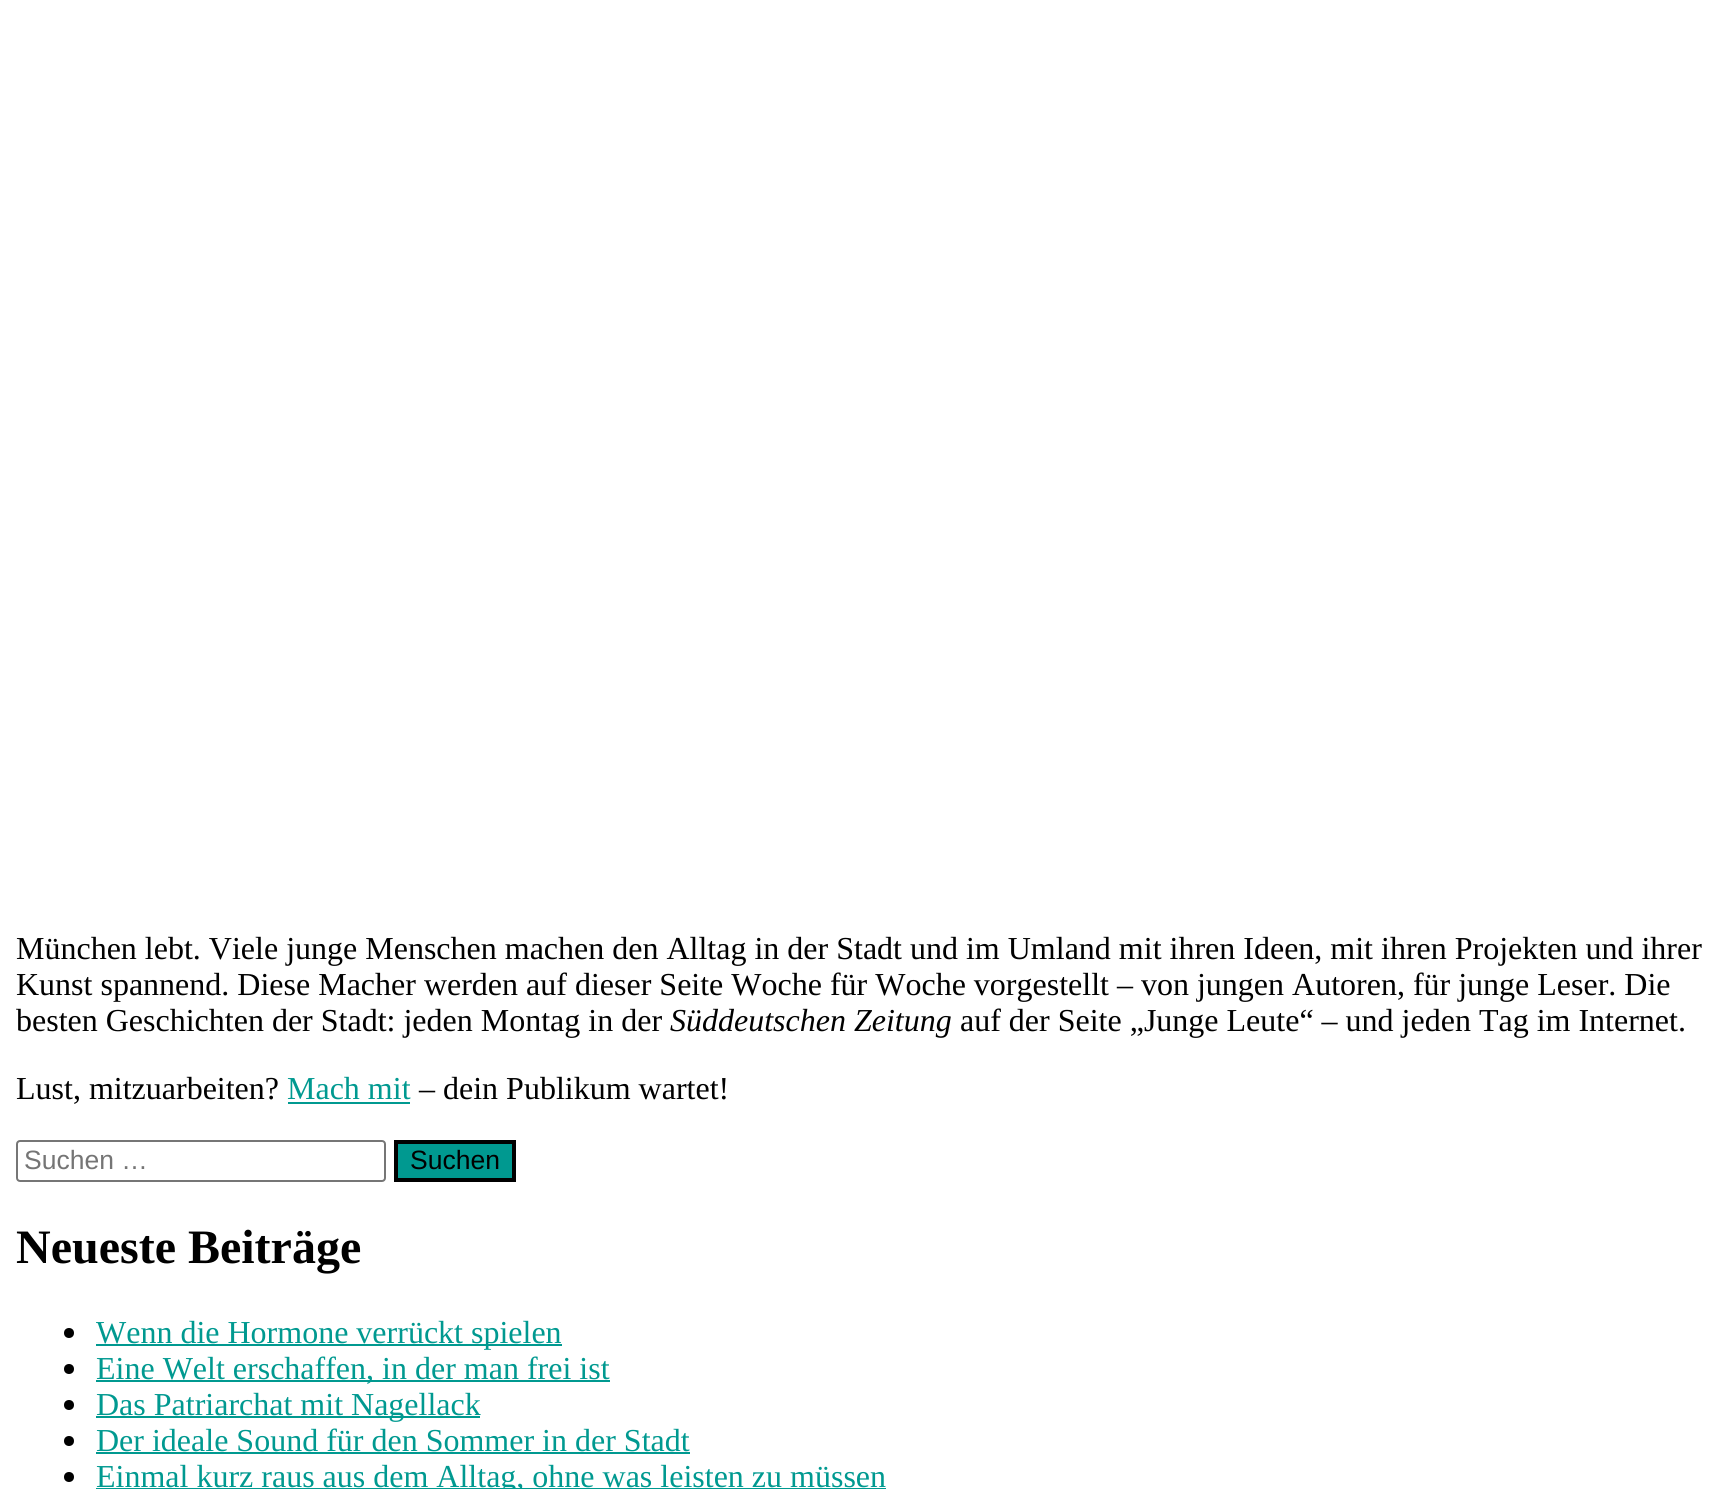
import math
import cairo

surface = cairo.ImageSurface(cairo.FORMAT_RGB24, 1720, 1489)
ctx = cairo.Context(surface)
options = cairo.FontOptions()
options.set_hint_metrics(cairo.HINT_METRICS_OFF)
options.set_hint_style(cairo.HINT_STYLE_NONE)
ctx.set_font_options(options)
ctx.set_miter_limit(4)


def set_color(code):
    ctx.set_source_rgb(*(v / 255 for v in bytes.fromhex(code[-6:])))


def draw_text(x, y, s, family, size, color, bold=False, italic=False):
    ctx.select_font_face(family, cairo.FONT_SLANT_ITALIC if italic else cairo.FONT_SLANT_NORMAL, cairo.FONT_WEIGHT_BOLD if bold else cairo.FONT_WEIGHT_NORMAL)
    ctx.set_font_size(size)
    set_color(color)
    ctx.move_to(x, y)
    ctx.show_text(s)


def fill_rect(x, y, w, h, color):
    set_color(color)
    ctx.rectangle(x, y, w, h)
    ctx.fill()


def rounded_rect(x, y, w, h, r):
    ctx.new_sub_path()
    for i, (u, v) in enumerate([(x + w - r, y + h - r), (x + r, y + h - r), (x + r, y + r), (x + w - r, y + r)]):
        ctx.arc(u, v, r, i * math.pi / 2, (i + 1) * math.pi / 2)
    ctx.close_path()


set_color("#ffffff")
ctx.paint()
draw_text(16, 959, "München lebt. Viele junge Menschen machen den Alltag in der Stadt und im Umland mit ihren Ideen, mit ihren Projekten und ihrer", "Liberation Serif", 32, "#000000")
draw_text(16, 995, "Kunst spannend. Diese Macher werden auf dieser Seite Woche für Woche vorgestellt – von jungen Autoren, für junge Leser. Die", "Liberation Serif", 32, "#000000")
draw_text(16, 1031, "besten Geschichten der Stadt: jeden Montag in der", "Liberation Serif", 32, "#000000")
draw_text(670, 1031, "Süddeutschen Zeitung", "Liberation Serif", 32, "#000000", italic=True)
draw_text(960, 1031, "auf der Seite „Junge Leute“ – und jeden Tag im Internet.", "Liberation Serif", 32, "#000000")
draw_text(16, 1099, "Lust, mitzuarbeiten?", "Liberation Serif", 32, "#000000")
draw_text(287, 1099, "Mach mit", "Liberation Serif", 32, "#009990")
fill_rect(288, 1102, 122, 2, "#009990")
draw_text(419, 1099, "– dein Publikum wartet!", "Liberation Serif", 32, "#000000")
rounded_rect(17, 1141, 368, 40, 3)
set_color("#767676")
ctx.stroke()
draw_text(24, 1169, "Suchen …", "Liberation Sans", 26.5, "#757575")
set_color("#009990")
ctx.rectangle(396, 1142, 118, 38)
ctx.fill_preserve()
set_color("#000000")
ctx.set_line_width(4)
ctx.stroke()
draw_text(410, 1169, "Suchen", "Liberation Sans", 26.5, "#000000")
draw_text(16, 1263, "Neueste Beiträge", "Liberation Serif", 48, "#000000", bold=True)
ctx.new_path()
ctx.arc(69, 1333, 5, 0, 2 * math.pi)
ctx.fill()
fill_rect(96, 1344, 466, 2, "#009990")
draw_text(96, 1343, "Wenn die Hormone verrückt spielen", "Liberation Serif", 32, "#009990")
set_color("#000000")
ctx.new_path()
ctx.arc(69, 1369, 5, 0, 2 * math.pi)
ctx.fill()
fill_rect(96, 1380, 514, 2, "#009990")
draw_text(96, 1379, "Eine Welt erschaffen, in der man frei ist", "Liberation Serif", 32, "#009990")
set_color("#000000")
ctx.new_path()
ctx.arc(69, 1405, 5, 0, 2 * math.pi)
ctx.fill()
fill_rect(96, 1416, 384, 2, "#009990")
draw_text(96, 1415, "Das Patriarchat mit Nagellack", "Liberation Serif", 32, "#009990")
set_color("#000000")
ctx.new_path()
ctx.arc(69, 1441, 5, 0, 2 * math.pi)
ctx.fill()
draw_text(96, 1451, "Der ideale Sound für den Sommer in der Stadt", "Liberation Serif", 32, "#009990")
fill_rect(96, 1452, 594, 2, "#009990")
set_color("#000000")
ctx.new_path()
ctx.arc(69, 1477, 5, 0, 2 * math.pi)
ctx.fill()
fill_rect(96, 1488, 790, 1, "#009990")
draw_text(96, 1487, "Einmal kurz raus aus dem Alltag, ohne was leisten zu müssen", "Liberation Serif", 32, "#009990")
surface.write_to_png("output.png")
